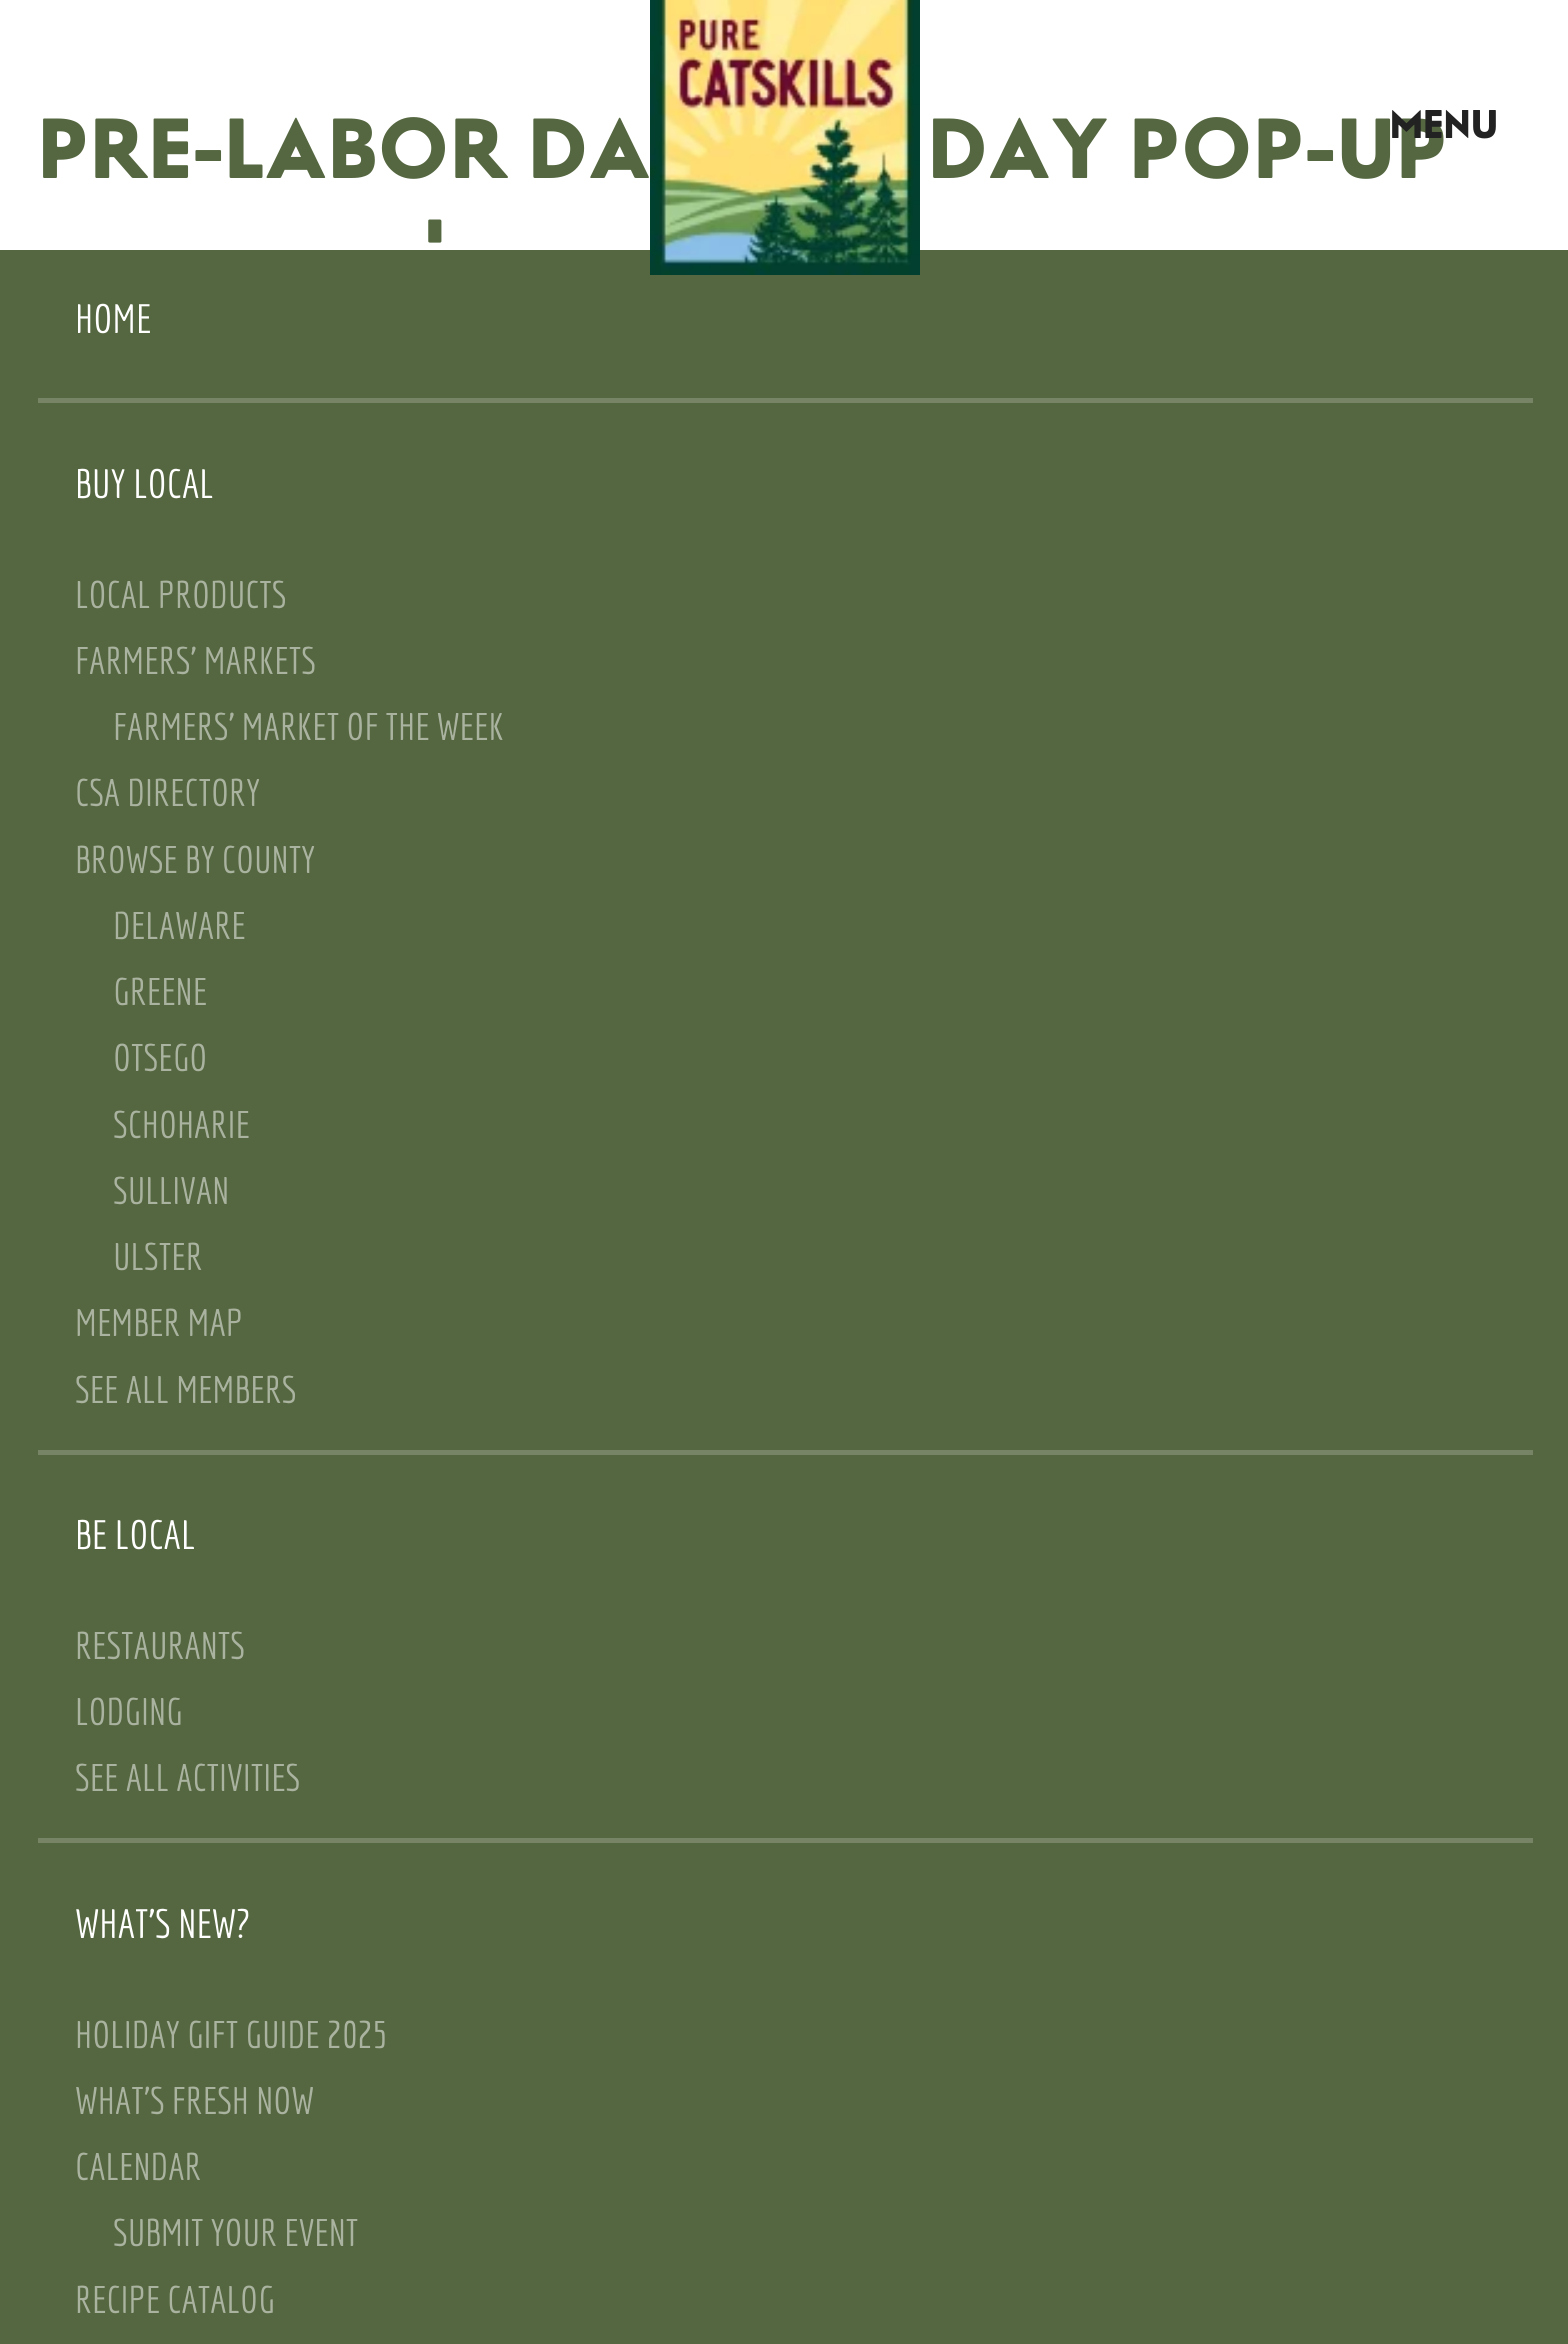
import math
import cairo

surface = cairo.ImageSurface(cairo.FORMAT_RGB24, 1568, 2344)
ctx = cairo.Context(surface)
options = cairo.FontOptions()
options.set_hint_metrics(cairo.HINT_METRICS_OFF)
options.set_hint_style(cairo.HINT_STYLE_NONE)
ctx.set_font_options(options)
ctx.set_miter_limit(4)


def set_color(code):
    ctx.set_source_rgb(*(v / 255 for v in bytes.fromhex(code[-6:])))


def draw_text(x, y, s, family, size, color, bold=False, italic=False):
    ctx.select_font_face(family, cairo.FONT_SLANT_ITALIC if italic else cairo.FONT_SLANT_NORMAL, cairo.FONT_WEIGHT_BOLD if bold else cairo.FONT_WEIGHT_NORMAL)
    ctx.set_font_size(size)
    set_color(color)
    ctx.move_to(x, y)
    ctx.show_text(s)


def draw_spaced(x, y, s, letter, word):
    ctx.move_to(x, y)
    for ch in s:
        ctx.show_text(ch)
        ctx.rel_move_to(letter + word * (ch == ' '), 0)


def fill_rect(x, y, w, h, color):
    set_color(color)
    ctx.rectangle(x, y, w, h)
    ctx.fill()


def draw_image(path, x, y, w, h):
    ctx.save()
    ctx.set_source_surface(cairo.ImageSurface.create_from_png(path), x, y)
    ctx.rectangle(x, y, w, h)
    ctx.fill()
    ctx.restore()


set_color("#ffffff")
ctx.paint()
fill_rect(0, 250, 1568, 2094, "#556740")
draw_image("assets/img1.png", 650, 0, 270, 275)
ctx.select_font_face("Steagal", cairo.FONT_SLANT_NORMAL, cairo.FONT_WEIGHT_BOLD)
ctx.set_font_size(85)
draw_spaced(928, 178, "DAY POP-UP", 1.9, 0)
draw_text(1390, 138, "MENU", "Steagal", 40, "#222222", bold=True)
draw_text(75, 333, "HOME", "Economica", 40, "#ffffff")
fill_rect(38, 398, 1495, 5, "#778566")
draw_text(75, 498, "BUY LOCAL", "Economica", 40, "#ffffff")
draw_text(75, 608, "LOCAL PRODUCTS", "Economica", 37.5, "#aab3a0")
draw_text(75, 674, "FARMERS’ MARKETS", "Economica", 37.5, "#aab3a0")
draw_text(113, 740, "FARMERS' MARKET OF THE WEEK", "Economica", 37.5, "#aab3a0")
draw_text(75, 806, "CSA DIRECTORY", "Economica", 37.5, "#aab3a0")
draw_text(75, 873, "BROWSE BY COUNTY", "Economica", 37.5, "#aab3a0")
draw_text(113, 939, "DELAWARE", "Economica", 37.5, "#aab3a0")
draw_text(113, 1005, "GREENE", "Economica", 37.5, "#aab3a0")
draw_text(113, 1071, "OTSEGO", "Economica", 37.5, "#aab3a0")
draw_text(113, 1138, "SCHOHARIE", "Economica", 37.5, "#aab3a0")
draw_text(113, 1204, "SULLIVAN", "Economica", 37.5, "#aab3a0")
draw_text(113, 1270, "ULSTER", "Economica", 37.5, "#aab3a0")
draw_text(75, 1336, "MEMBER MAP", "Economica", 37.5, "#aab3a0")
draw_text(75, 1403, "SEE ALL MEMBERS", "Economica", 37.5, "#aab3a0")
fill_rect(38, 1450, 1495, 5, "#778566")
draw_text(75, 1549, "BE LOCAL", "Economica", 40, "#ffffff")
draw_text(75, 1659, "RESTAURANTS", "Economica", 37.5, "#aab3a0")
draw_text(75, 1725, "LODGING", "Economica", 37.5, "#aab3a0")
draw_text(75, 1791, "SEE ALL ACTIVITIES", "Economica", 37.5, "#aab3a0")
fill_rect(38, 1838, 1495, 5, "#778566")
draw_text(75, 1938, "WHAT'S NEW?", "Economica", 40, "#ffffff")
draw_text(75, 2048, "HOLIDAY GIFT GUIDE 2025", "Economica", 37.5, "#aab3a0")
draw_text(75, 2114, "WHAT’S FRESH NOW", "Economica", 37.5, "#aab3a0")
draw_text(75, 2180, "CALENDAR", "Economica", 37.5, "#aab3a0")
draw_text(113, 2246, "SUBMIT YOUR EVENT", "Economica", 37.5, "#aab3a0")
draw_text(75, 2313, "RECIPE CATALOG", "Economica", 37.5, "#aab3a0")
ctx.select_font_face("Steagal", cairo.FONT_SLANT_NORMAL, cairo.FONT_WEIGHT_BOLD)
ctx.set_font_size(85)
set_color("#556740")
draw_spaced(38, 178, "PRE-LABOR DA", 1.9, 0)
draw_spaced(424, 279, "'", 1.9, 0)
surface.write_to_png("output.png")
